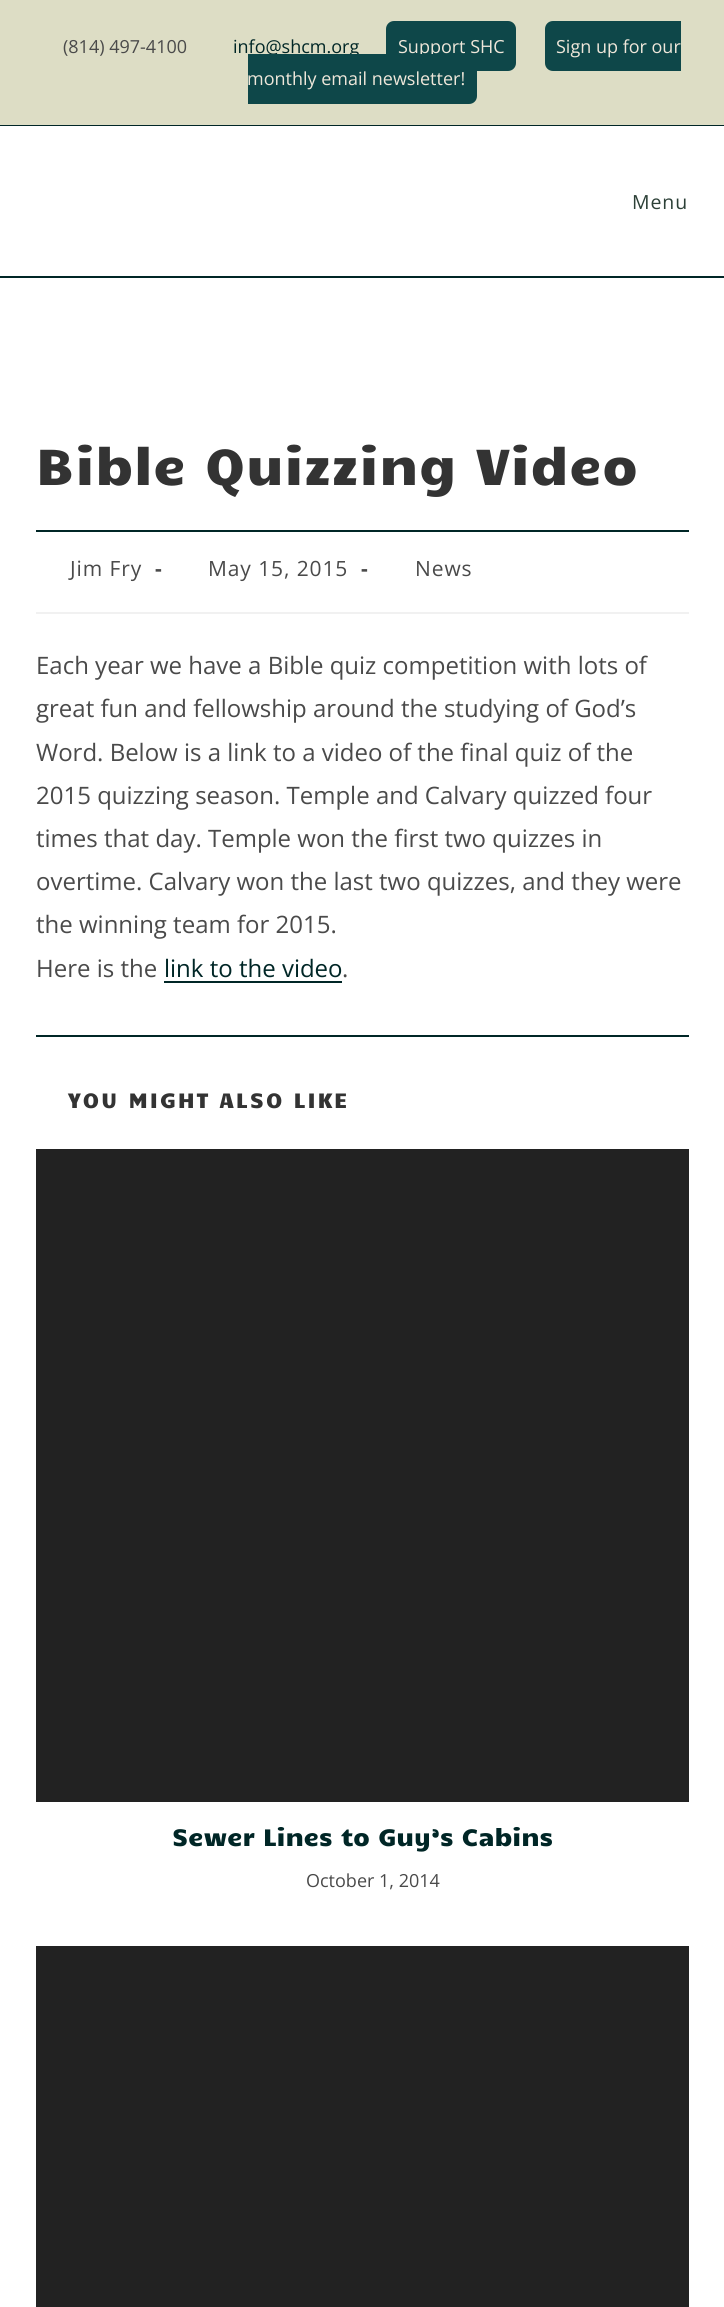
import math
import cairo

surface = cairo.ImageSurface(cairo.FORMAT_RGB24, 724, 2307)
ctx = cairo.Context(surface)
options = cairo.FontOptions()
options.set_hint_metrics(cairo.HINT_METRICS_OFF)
options.set_hint_style(cairo.HINT_STYLE_NONE)
ctx.set_font_options(options)
ctx.set_miter_limit(4)


def set_color(code):
    ctx.set_source_rgb(*(v / 255 for v in bytes.fromhex(code[-6:])))


def draw_text(x, y, s, family, size, color, bold=False, italic=False):
    ctx.select_font_face(family, cairo.FONT_SLANT_ITALIC if italic else cairo.FONT_SLANT_NORMAL, cairo.FONT_WEIGHT_BOLD if bold else cairo.FONT_WEIGHT_NORMAL)
    ctx.set_font_size(size)
    set_color(color)
    ctx.move_to(x, y)
    ctx.show_text(s)


def draw_spaced(x, y, s, letter, word):
    ctx.move_to(x, y)
    for ch in s:
        ctx.show_text(ch)
        ctx.rel_move_to(letter + word * (ch == ' '), 0)


def fill_rect(x, y, w, h, color):
    set_color(color)
    ctx.rectangle(x, y, w, h)
    ctx.fill()


def rounded_rect(x, y, w, h, r):
    ctx.new_sub_path()
    for i, (u, v) in enumerate([(x + w - r, y + h - r), (x + r, y + h - r), (x + r, y + r), (x + w - r, y + r)]):
        ctx.arc(u, v, r, i * math.pi / 2, (i + 1) * math.pi / 2)
    ctx.close_path()


set_color("#ffffff")
ctx.paint()
fill_rect(0, 0, 724, 125, "#ddddc5")
fill_rect(0, 125, 724, 1, "#002626")
draw_text(63, 53, "(814) 497-4100", "Open Sans", 18, "#4a4a4a")
draw_text(233, 53, "info@shcm.org", "Open Sans", 18, "#002626")
set_color("#0e4749")
rounded_rect(386, 21, 130, 50, 8)
ctx.fill()
draw_text(398, 53, "Support SHC", "Open Sans", 18, "#efe7da")
set_color("#0e4749")
ctx.new_path()
ctx.move_to(553, 21)
ctx.line_to(681, 21)
ctx.line_to(681, 71)
ctx.line_to(553, 71)
ctx.curve_to(548.5, 71, 545, 67.5, 545, 63)
ctx.line_to(545, 29)
ctx.curve_to(545, 24.5, 548.5, 21, 553, 21)
ctx.close_path()
ctx.fill()
draw_text(556, 53, "Sign up for our", "Open Sans", 18, "#efe7da")
set_color("#0e4749")
ctx.new_path()
ctx.move_to(248, 54)
ctx.line_to(469, 54)
ctx.curve_to(473.5, 54, 477, 57.5, 477, 62)
ctx.line_to(477, 96)
ctx.curve_to(477, 100.5, 473.5, 104, 469, 104)
ctx.line_to(248, 104)
ctx.close_path()
ctx.fill()
draw_text(247, 85, "monthly email newsletter!", "Open Sans", 18, "#efe7da")
fill_rect(0, 276, 724, 2, "#002626")
ctx.set_font_size(19.5)
set_color("#2c4037")
draw_spaced(632, 209, "Menu", 0.9, 0)
fill_rect(36, 530, 653, 2, "#002626")
ctx.select_font_face("Candal")
ctx.set_font_size(51)
set_color("#333333")
draw_spaced(36, 485, "Bible Quizzing Video", 0.9, 0)
fill_rect(36, 612, 653, 2, "#f1f1f1")
ctx.select_font_face("Open Sans")
ctx.set_font_size(21)
set_color("#4a4a4a")
draw_spaced(70, 576, "Jim Fry", 0.9, 0)
ctx.select_font_face("Open Sans", cairo.FONT_SLANT_NORMAL, cairo.FONT_WEIGHT_BOLD)
draw_spaced(155, 576, "-", 0.9, 0)
ctx.select_font_face("Open Sans")
draw_spaced(208, 576, "May 15, 2015", 0.9, 0)
ctx.select_font_face("Open Sans", cairo.FONT_SLANT_NORMAL, cairo.FONT_WEIGHT_BOLD)
draw_spaced(361, 576, "-", 0.9, 0)
ctx.select_font_face("Open Sans")
draw_spaced(415, 576, "News", 0.9, 0)
draw_text(36, 674, "Each year we have a Bible quiz competition with lots of", "Open Sans", 24, "#4a4a4a")
draw_text(36, 717, "great fun and fellowship around the studying of God’s", "Open Sans", 24, "#4a4a4a")
draw_text(36, 761, "Word. Below is a link to a video of the final quiz of the", "Open Sans", 24, "#4a4a4a")
draw_text(36, 804, "2015 quizzing season. Temple and Calvary quizzed four", "Open Sans", 24, "#4a4a4a")
draw_text(36, 847, "times that day. Temple won the first two quizzes in", "Open Sans", 24, "#4a4a4a")
draw_text(36, 890, "overtime. Calvary won the last two quizzes, and they were", "Open Sans", 24, "#4a4a4a")
draw_text(36, 933, "the winning team for 2015.", "Open Sans", 24, "#4a4a4a")
draw_text(36, 977, "Here is the", "Open Sans", 24, "#4a4a4a")
draw_text(164, 977, "link to the video", "Open Sans", 24, "#002626")
fill_rect(164, 981, 178, 2, "#002626")
draw_text(342, 977, ".", "Open Sans", 24, "#4a4a4a")
fill_rect(36, 1035, 653, 2, "#002626")
ctx.select_font_face("Candal")
ctx.set_font_size(21)
set_color("#333333")
draw_spaced(68, 1108, "YOU MIGHT ALSO LIKE", 2, 0)
fill_rect(36, 1149, 653, 653, "#222222")
draw_text(172, 1846, "Sewer Lines to Guy’s Cabins", "Candal", 24, "#002626")
draw_text(306, 1887, "October 1, 2014", "Open Sans", 18, "#4a4a4a")
fill_rect(36, 1946, 653, 361, "#222222")
surface.write_to_png("output.png")
